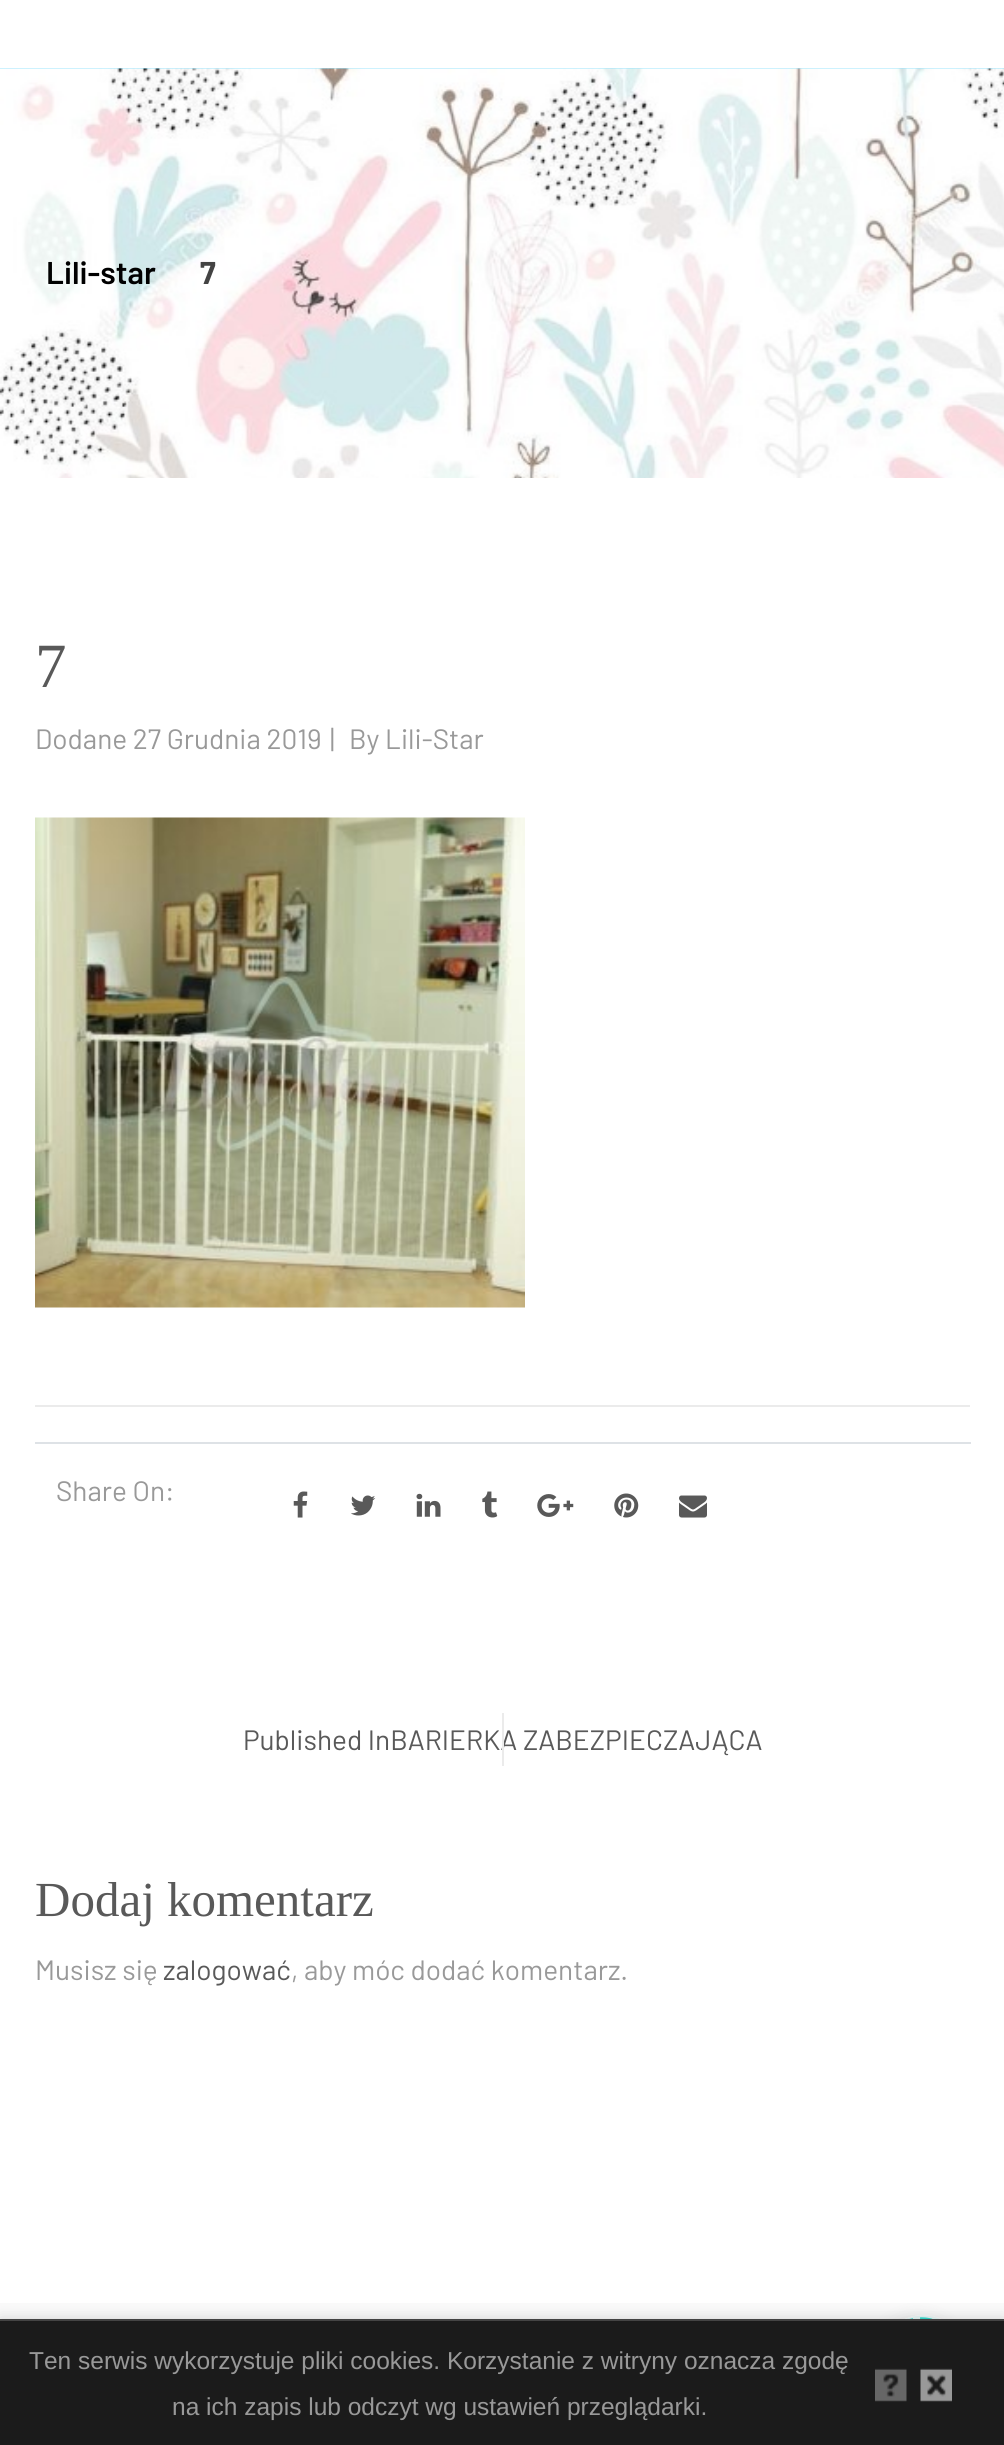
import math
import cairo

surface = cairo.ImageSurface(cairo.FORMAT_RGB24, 1004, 2445)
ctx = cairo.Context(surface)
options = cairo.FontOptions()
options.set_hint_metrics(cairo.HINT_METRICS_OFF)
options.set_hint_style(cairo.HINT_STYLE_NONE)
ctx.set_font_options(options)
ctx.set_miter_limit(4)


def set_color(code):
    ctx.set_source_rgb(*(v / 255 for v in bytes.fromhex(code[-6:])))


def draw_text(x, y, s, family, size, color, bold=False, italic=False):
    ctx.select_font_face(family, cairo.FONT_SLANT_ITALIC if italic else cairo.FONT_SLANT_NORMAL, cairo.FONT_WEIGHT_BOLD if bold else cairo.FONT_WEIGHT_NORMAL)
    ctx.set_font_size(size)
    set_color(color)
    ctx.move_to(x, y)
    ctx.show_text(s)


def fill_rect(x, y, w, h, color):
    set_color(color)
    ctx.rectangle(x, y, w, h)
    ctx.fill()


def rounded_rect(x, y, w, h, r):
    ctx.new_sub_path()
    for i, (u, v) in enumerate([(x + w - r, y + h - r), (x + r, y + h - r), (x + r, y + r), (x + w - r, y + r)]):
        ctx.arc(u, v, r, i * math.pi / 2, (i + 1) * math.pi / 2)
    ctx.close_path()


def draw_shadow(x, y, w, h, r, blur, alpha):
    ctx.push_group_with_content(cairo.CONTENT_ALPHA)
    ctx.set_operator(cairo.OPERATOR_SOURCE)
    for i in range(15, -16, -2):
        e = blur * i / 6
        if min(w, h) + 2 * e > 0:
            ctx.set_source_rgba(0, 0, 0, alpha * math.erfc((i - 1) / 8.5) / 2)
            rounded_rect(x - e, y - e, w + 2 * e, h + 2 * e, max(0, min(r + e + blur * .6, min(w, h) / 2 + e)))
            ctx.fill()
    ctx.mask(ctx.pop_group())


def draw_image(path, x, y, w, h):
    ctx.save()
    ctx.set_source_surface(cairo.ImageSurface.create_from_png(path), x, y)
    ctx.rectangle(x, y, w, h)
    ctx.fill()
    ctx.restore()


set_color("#ffffff")
ctx.paint()
fill_rect(0, 68, 1004, 1, "#9ae5fc")
draw_image("assets/img1.png", 0, 68, 1004, 410)
draw_text(46, 284, "Lili-star", "Barlow SemiBold", 31.5, "#000000")
draw_text(200, 284, "7", "Barlow", 31.5, "#434343", bold=True)
draw_text(35, 687, "7", "Liberation Serif", 63, "#595959")
draw_text(35, 749, "Dodane 27 Grudnia 2019", "Barlow", 28, "#999999")
draw_text(330, 749, "|", "Barlow", 28, "#999999")
draw_text(349, 749, "By Lili-Star", "Barlow", 28, "#999999")
draw_image("assets/img2.png", 35, 817, 490, 491)
fill_rect(35, 1405, 935, 2, "#ebebeb")
fill_rect(35, 1442, 936, 2, "#dee2e6")
draw_image("assets/img3.png", 293, 1491, 15, 27)
draw_image("assets/img4.png", 351, 1495, 25, 21)
draw_image("assets/img5.png", 416, 1493, 25, 24)
draw_image("assets/img6.png", 482, 1491, 16, 27)
draw_image("assets/img7.png", 537, 1494, 37, 23)
draw_image("assets/img8.png", 614, 1493, 25, 25)
draw_image("assets/img9.png", 679, 1495, 28, 23)
draw_text(56, 1501, "Share On:", "Barlow", 28, "#999999")
draw_text(243, 1750, "Published InBARIERKA ZABEZPIECZAJĄCA", "Barlow", 28, "#595959")
fill_rect(502, 1713, 2, 53, "#ebebeb")
draw_text(35, 1916, "Dodaj komentarz", "Liberation Serif", 49, "#595959")
draw_text(35, 1980, "Musisz się", "Barlow", 28, "#999999")
draw_text(163, 1980, "zalogować", "Barlow", 28, "#595959")
draw_text(291, 1980, ", aby móc dodać komentarz.", "Barlow", 28, "#999999")
fill_rect(0, 2303, 1004, 16, "#f9f9f9")
ctx.save()
ctx.set_fill_rule(cairo.FILL_RULE_EVEN_ODD)
ctx.new_path()
ctx.move_to(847, 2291)
ctx.line_to(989, 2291)
ctx.line_to(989, 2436)
ctx.line_to(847, 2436)
ctx.close_path()
ctx.move_to(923, 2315)
ctx.curve_to(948.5, 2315, 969.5, 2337, 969.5, 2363.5)
ctx.curve_to(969.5, 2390, 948.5, 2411.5, 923, 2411.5)
ctx.curve_to(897.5, 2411.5, 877, 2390, 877, 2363.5)
ctx.curve_to(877, 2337, 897.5, 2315, 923, 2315)
ctx.close_path()
ctx.clip()
set_color("#000000")
draw_shadow(875, 2319, 86, 89, 43, 9, 0.1)
ctx.restore()
ctx.set_source_rgba(0.212, 0.859, 0.808, 0.1)
ctx.new_path()
ctx.move_to(923, 2315.5)
ctx.curve_to(948.5, 2315.5, 969.5, 2337, 969.5, 2363.5)
ctx.curve_to(969.5, 2390, 948.5, 2411.5, 923, 2411.5)
ctx.curve_to(897.5, 2411.5, 876.5, 2390, 876.5, 2363.5)
ctx.curve_to(876.5, 2337, 897.5, 2315.5, 923, 2315.5)
ctx.close_path()
ctx.fill()
ctx.new_path()
ctx.move_to(921.5, 2319)
ctx.curve_to(944, 2319, 962.5, 2338, 962.5, 2361.5)
ctx.curve_to(962.5, 2385.5, 944, 2404.5, 921.5, 2404.5)
ctx.curve_to(898.5, 2404.5, 880, 2385.5, 880, 2361.5)
ctx.curve_to(880, 2338, 898.5, 2319, 921.5, 2319)
ctx.close_path()
set_color("#36dbce")
ctx.set_line_width(3.5)
ctx.set_dash([10.5, 7])
ctx.stroke()
set_color("#000000")
draw_shadow(0, 2319, 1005, 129, 0, 7, 0.15)
fill_rect(0, 2321, 1004, 124, "#1b1b1b")
fill_rect(0, 2319, 1004, 2, "#444444")
draw_text(29, 2369, "Ten serwis wykorzystuje pliki cookies. Korzystanie z witryny oznacza zgodę", "Liberation Sans", 24.5, "#999999")
draw_text(172, 2415, "na ich zapis lub odczyt wg ustawień przeglądarki.", "Liberation Sans", 24.5, "#999999")
draw_image("assets/img10.png", 875, 2368, 32, 34)
draw_image("assets/img11.png", 920, 2368, 32, 34)
surface.write_to_png("output.png")
